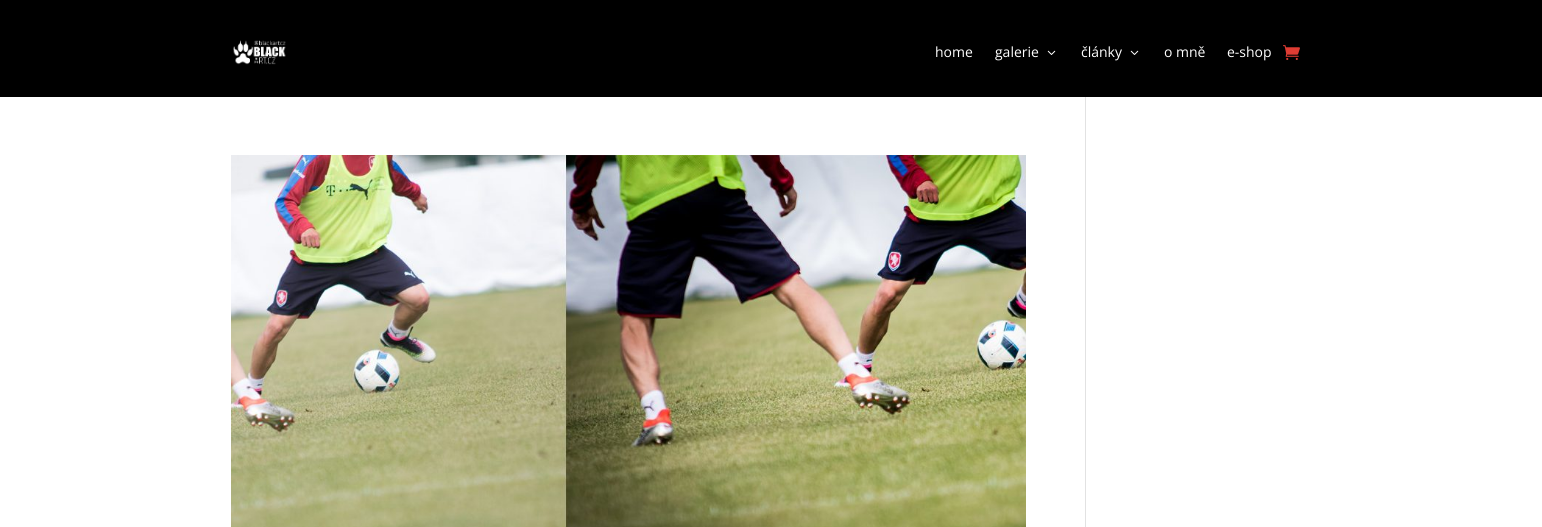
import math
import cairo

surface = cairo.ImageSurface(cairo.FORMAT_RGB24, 1542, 527)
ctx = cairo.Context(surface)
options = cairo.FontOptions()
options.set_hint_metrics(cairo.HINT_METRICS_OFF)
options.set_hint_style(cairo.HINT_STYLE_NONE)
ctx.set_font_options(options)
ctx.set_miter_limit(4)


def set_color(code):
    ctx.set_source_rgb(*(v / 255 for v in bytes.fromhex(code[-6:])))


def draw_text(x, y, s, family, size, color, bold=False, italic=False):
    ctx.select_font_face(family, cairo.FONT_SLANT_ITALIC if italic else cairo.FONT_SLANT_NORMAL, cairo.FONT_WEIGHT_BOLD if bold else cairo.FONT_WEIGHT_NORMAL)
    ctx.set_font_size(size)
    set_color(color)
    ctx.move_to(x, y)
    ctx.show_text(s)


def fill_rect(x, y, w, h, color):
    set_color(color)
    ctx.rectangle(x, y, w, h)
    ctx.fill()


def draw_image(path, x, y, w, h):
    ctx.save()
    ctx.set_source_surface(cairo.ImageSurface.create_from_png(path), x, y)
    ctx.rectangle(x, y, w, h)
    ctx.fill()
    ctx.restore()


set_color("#000000")
ctx.paint()
draw_image("assets/img1.png", 233, 40, 53, 25)
draw_text(935, 57, "home", "Open Sans", 14, "#ffffff")
draw_text(995, 57, "galerie", "Open Sans", 14, "#ffffff")
draw_image("assets/img2.png", 1047, 50, 9, 5)
draw_text(1081, 57, "články", "Open Sans", 14, "#ffffff")
draw_image("assets/img2.png", 1130, 50, 9, 5)
draw_text(1164, 57, "o mně", "Open Sans", 14, "#ffffff")
draw_text(1227, 57, "e-shop", "Open Sans", 14, "#ffffff")
draw_image("assets/img3.png", 1283, 45, 17, 15)
fill_rect(0, 97, 1542, 430, "#ffffff")
draw_image("assets/img4.png", 231, 155, 795, 372)
fill_rect(1085, 97, 1, 430, "#e2e2e2")
surface.write_to_png("output.png")
